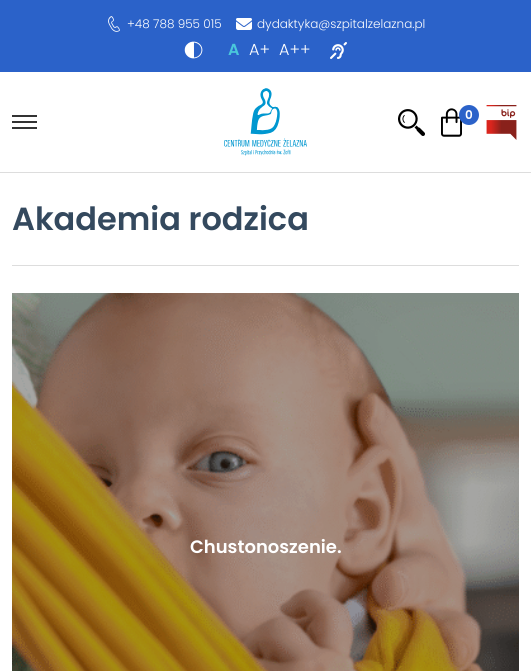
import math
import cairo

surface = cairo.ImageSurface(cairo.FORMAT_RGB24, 531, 671)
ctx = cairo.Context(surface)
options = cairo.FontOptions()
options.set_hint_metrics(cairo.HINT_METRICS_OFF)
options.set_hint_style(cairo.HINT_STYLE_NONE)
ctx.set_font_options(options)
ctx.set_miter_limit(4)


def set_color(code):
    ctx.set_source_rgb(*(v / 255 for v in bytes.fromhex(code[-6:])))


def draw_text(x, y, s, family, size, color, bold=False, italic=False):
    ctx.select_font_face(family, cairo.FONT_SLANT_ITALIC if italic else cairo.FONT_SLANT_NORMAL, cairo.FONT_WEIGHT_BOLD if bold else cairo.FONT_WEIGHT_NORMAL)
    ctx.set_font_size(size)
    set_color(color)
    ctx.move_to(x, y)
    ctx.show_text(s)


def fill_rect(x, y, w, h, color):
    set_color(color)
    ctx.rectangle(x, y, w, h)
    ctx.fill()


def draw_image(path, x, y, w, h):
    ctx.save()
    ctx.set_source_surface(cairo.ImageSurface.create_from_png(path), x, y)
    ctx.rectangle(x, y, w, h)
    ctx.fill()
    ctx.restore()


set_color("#ffffff")
ctx.paint()
fill_rect(0, 172, 531, 1, "#dddddd")
fill_rect(0, 0, 531, 72, "#2b62c9")
draw_image("assets/img1.png", 108, 16, 12, 16)
draw_text(127, 28, "+48 788 955 015", "Poppins Light", 12, "#ffffff")
draw_image("assets/img2.png", 236, 18, 16, 12)
draw_text(257, 28, "dydaktyka@szpitalzelazna.pl", "Poppins Light", 12, "#ffffff")
draw_image("assets/img3.png", 184, 41, 19, 18)
draw_text(228, 55, "A", "Poppins SemiBold", 16, "#4ac7db")
draw_text(249, 55, "A+", "Poppins Light", 16, "#ffffff")
draw_text(279, 55, "A++", "Poppins Light", 16, "#ffffff")
draw_image("assets/img4.png", 330, 42, 17, 17)
fill_rect(12, 115, 25, 2, "#333333")
fill_rect(12, 121, 25, 2, "#333333")
fill_rect(12, 127, 25, 2, "#333333")
draw_image("assets/img5.png", 224, 88, 83, 68)
draw_image("assets/img6.png", 398, 109, 27, 27)
draw_image("assets/img7.png", 441, 108, 21, 29)
set_color("#2b62c9")
ctx.arc(469, 115, 10, 0, 2 * math.pi)
ctx.fill()
draw_text(465, 119, "0", "Poppins SemiBold", 12, "#ffffff")
draw_image("assets/img8.png", 486, 105, 31, 35)
draw_text(12, 230, "Akademia rodzica", "Poppins SemiBold", 32, "#34495e")
fill_rect(12, 265, 507, 1, "#dddddd")
fill_rect(12, 293, 507, 378, "#000000")
draw_image("assets/img9.png", 12, 293, 507, 378)
draw_text(190, 553, "Chustonoszenie.", "Poppins SemiBold", 18, "#ffffff")
surface.write_to_png("output.png")
